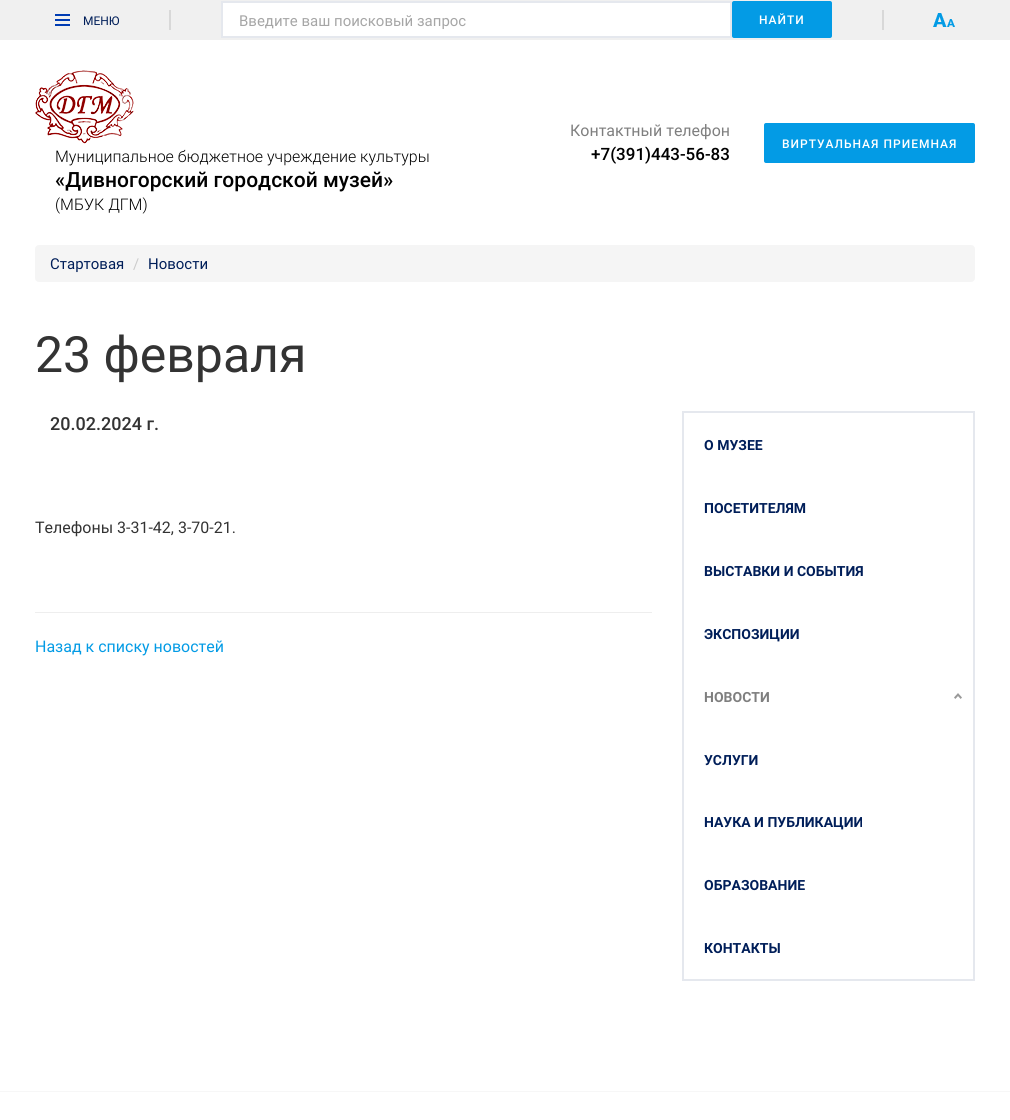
import math
import cairo

surface = cairo.ImageSurface(cairo.FORMAT_RGB24, 1010, 1120)
ctx = cairo.Context(surface)
options = cairo.FontOptions()
options.set_hint_metrics(cairo.HINT_METRICS_OFF)
options.set_hint_style(cairo.HINT_STYLE_NONE)
ctx.set_font_options(options)
ctx.set_miter_limit(4)


def set_color(code):
    ctx.set_source_rgb(*(v / 255 for v in bytes.fromhex(code[-6:])))


def draw_text(x, y, s, family, size, color, bold=False, italic=False):
    ctx.select_font_face(family, cairo.FONT_SLANT_ITALIC if italic else cairo.FONT_SLANT_NORMAL, cairo.FONT_WEIGHT_BOLD if bold else cairo.FONT_WEIGHT_NORMAL)
    ctx.set_font_size(size)
    set_color(color)
    ctx.move_to(x, y)
    ctx.show_text(s)


def draw_spaced(x, y, s, letter, word):
    ctx.move_to(x, y)
    for ch in s:
        ctx.show_text(ch)
        ctx.rel_move_to(letter + word * (ch == ' '), 0)


def fill_rect(x, y, w, h, color):
    set_color(color)
    ctx.rectangle(x, y, w, h)
    ctx.fill()


def rounded_rect(x, y, w, h, r):
    ctx.new_sub_path()
    for i, (u, v) in enumerate([(x + w - r, y + h - r), (x + r, y + h - r), (x + r, y + r), (x + w - r, y + r)]):
        ctx.arc(u, v, r, i * math.pi / 2, (i + 1) * math.pi / 2)
    ctx.close_path()


def draw_image(path, x, y, w, h):
    ctx.save()
    ctx.set_source_surface(cairo.ImageSurface.create_from_png(path), x, y)
    ctx.rectangle(x, y, w, h)
    ctx.fill()
    ctx.restore()


set_color("#ffffff")
ctx.paint()
fill_rect(0, 0, 1010, 40, "#f0f0f0")
fill_rect(55, 14, 15, 2, "#003cb3")
fill_rect(55, 19, 15, 2, "#003cb3")
draw_text(83, 25, "МЕНЮ", "Roboto", 12, "#001e59")
fill_rect(55, 24, 15, 2, "#003cb3")
fill_rect(169, 10, 2, 20, "#d8d8d8")
set_color("#ffffff")
ctx.rectangle(222, 2, 509, 35)
ctx.fill_preserve()
set_color("#e5e8ee")
ctx.stroke()
draw_text(239, 26, "Введите ваш поисковый запрос", "Roboto", 15, "#a6a6a6")
set_color("#039be5")
rounded_rect(733, 2, 98, 35, 1)
ctx.fill_preserve()
ctx.stroke()
ctx.select_font_face("Roboto Medium")
ctx.set_font_size(12)
set_color("#ffffff")
draw_spaced(759, 24, "НАЙТИ", 1, 0)
fill_rect(882, 10, 2, 20, "#d8d8d8")
draw_image("assets/img1.png", 933, 13, 22, 14)
draw_text(570, 136, "Контактный телефон", "Roboto", 16, "#7f7f7f")
draw_text(591, 160, "+7(391)443-56-83", "Roboto Medium", 17, "#000000")
set_color("#039be5")
rounded_rect(765, 124, 209, 38, 1)
ctx.fill_preserve()
ctx.stroke()
ctx.set_font_size(12)
set_color("#ffffff")
draw_spaced(782, 148, "ВИРТУАЛЬНАЯ ПРИЕМНАЯ", 1, 0)
draw_image("assets/img2.png", 35, 70, 99, 74)
draw_text(55, 162, "Муниципальное бюджетное учреждение культуры", "Roboto Light", 16, "#000000")
draw_text(55, 187, "«Дивногорский городской музей»", "Roboto Medium", 21, "#000000")
draw_text(55, 210, "(МБУК ДГМ)", "Roboto Light", 16, "#000000")
set_color("#f5f5f5")
rounded_rect(35, 245, 940, 37, 4)
ctx.fill()
draw_text(50, 269, "Стартовая", "Roboto", 15, "#001e59")
draw_text(133, 269, "/", "Roboto", 15, "#cccccc")
draw_text(148, 269, "Новости", "Roboto", 15, "#001e59")
draw_text(35, 372, "23 февраля", "Roboto", 50, "#333333")
draw_text(50, 430, "20.02.2024 г.", "Roboto Medium", 18, "#333333")
draw_text(35, 533, "Телефоны 3-31-42, 3-70-21.", "Roboto", 16, "#333333")
fill_rect(35, 612, 617, 1, "#eeeeee")
draw_text(35, 652, "Назад к списку новостей", "Roboto", 16, "#039be5")
ctx.rectangle(683, 412, 291, 568)
set_color("#e5e8ee")
ctx.stroke()
draw_text(704, 450, "О МУЗЕЕ", "Roboto", 14, "#001e59", bold=True)
draw_text(704, 513, "ПОСЕТИТЕЛЯМ", "Roboto", 14, "#001e59", bold=True)
draw_text(704, 576, "ВЫСТАВКИ И СОБЫТИЯ", "Roboto", 14, "#001e59", bold=True)
draw_text(704, 639, "ЭКСПОЗИЦИИ", "Roboto", 14, "#001e59", bold=True)
draw_text(704, 702, "НОВОСТИ", "Roboto", 14, "#7f7f7f", bold=True)
draw_image("assets/img3.png", 954, 693, 8, 6)
draw_text(704, 765, "УСЛУГИ", "Roboto", 14, "#001e59", bold=True)
draw_text(704, 827, "НАУКА И ПУБЛИКАЦИИ", "Roboto", 14, "#001e59", bold=True)
draw_text(704, 890, "ОБРАЗОВАНИЕ", "Roboto", 14, "#001e59", bold=True)
draw_text(704, 953, "КОНТАКТЫ", "Roboto", 14, "#001e59", bold=True)
fill_rect(0, 1091, 1010, 1, "#f7f7f7")
surface.write_to_png("output.png")
